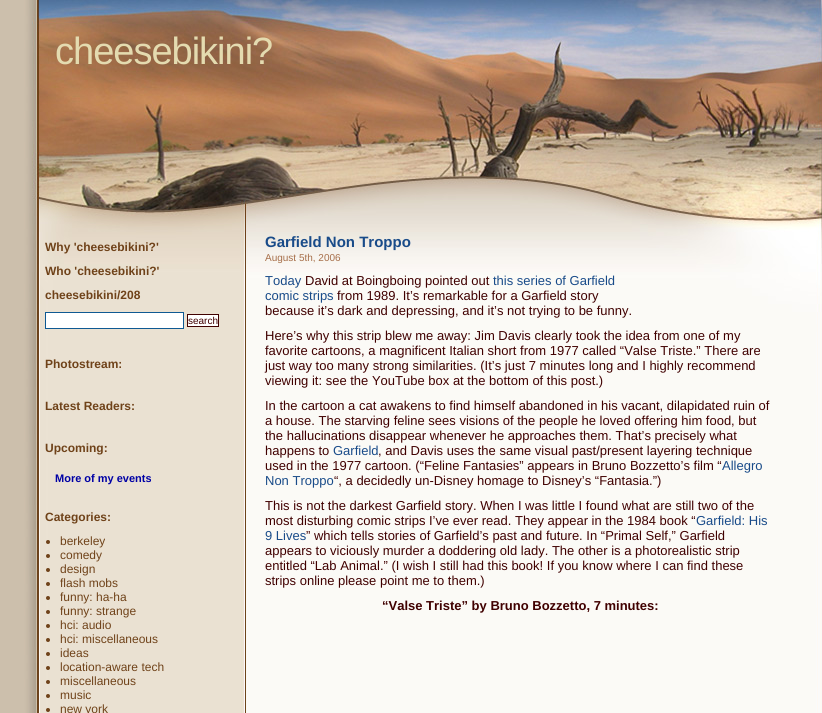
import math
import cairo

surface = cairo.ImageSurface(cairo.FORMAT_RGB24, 822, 713)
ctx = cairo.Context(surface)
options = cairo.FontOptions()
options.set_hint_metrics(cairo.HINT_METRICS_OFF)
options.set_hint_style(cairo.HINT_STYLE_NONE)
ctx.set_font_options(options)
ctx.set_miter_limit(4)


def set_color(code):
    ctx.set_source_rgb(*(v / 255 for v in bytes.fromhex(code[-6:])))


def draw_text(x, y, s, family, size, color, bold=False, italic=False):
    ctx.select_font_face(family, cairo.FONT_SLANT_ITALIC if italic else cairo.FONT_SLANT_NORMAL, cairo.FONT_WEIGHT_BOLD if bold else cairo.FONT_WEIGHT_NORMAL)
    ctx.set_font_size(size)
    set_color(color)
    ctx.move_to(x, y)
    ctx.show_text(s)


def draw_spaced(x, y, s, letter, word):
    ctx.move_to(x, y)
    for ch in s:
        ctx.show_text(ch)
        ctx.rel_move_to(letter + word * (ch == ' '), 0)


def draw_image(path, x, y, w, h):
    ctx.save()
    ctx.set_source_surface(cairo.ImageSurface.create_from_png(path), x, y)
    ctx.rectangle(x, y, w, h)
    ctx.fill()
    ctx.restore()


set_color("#ffffff")
ctx.paint()
draw_image("assets/img1.png", 0, 0, 822, 713)
draw_image("assets/img2.png", 32, 0, 790, 312)
ctx.select_font_face("Liberation Sans")
ctx.set_font_size(38)
set_color("#e4dbb0")
draw_spaced(55, 64, "cheesebikini?", -1, 0)
draw_text(45, 251, "Why 'cheesebikini?'", "Liberation Sans", 12, "#6f4219", bold=True)
draw_text(45, 275, "Who 'cheesebikini?'", "Liberation Sans", 12, "#6f4219", bold=True)
draw_text(45, 299, "cheesebikini/208", "Liberation Sans", 12, "#6f4219", bold=True)
set_color("#ffffff")
ctx.rectangle(45.5, 312.5, 138, 16)
ctx.fill_preserve()
set_color("#0e5993")
ctx.set_line_width(1)
ctx.stroke()
set_color("#ffffff")
ctx.rectangle(187.5, 314.5, 31, 12)
ctx.fill_preserve()
set_color("#400000")
ctx.stroke()
draw_text(188, 324, "search", "Liberation Sans", 10, "#400000")
draw_text(45, 368, "Photostream:", "Liberation Sans", 12, "#6f4219", bold=True)
draw_text(45, 410, "Latest Readers:", "Liberation Sans", 12, "#6f4219", bold=True)
draw_text(45, 452, "Upcoming:", "Liberation Sans", 12, "#6f4219", bold=True)
draw_text(55, 482, "More of my events", "Liberation Sans", 11, "#0000a5", bold=True)
draw_text(45, 521, "Categories:", "Liberation Sans", 12, "#6f4219", bold=True)
ctx.new_path()
ctx.arc(48, 542, 2, 0, 2 * math.pi)
ctx.fill()
draw_text(60, 545, "berkeley", "Liberation Sans", 12, "#6f4219")
ctx.new_path()
ctx.arc(48, 556, 2, 0, 2 * math.pi)
ctx.fill()
draw_text(60, 559, "comedy", "Liberation Sans", 12, "#6f4219")
ctx.new_path()
ctx.arc(48, 570, 2, 0, 2 * math.pi)
ctx.fill()
draw_text(60, 573, "design", "Liberation Sans", 12, "#6f4219")
ctx.new_path()
ctx.arc(48, 584, 2, 0, 2 * math.pi)
ctx.fill()
draw_text(60, 587, "flash mobs", "Liberation Sans", 12, "#6f4219")
ctx.new_path()
ctx.arc(48, 598, 2, 0, 2 * math.pi)
ctx.fill()
draw_text(60, 601, "funny: ha-ha", "Liberation Sans", 12, "#6f4219")
ctx.new_path()
ctx.arc(48, 612, 2, 0, 2 * math.pi)
ctx.fill()
draw_text(60, 615, "funny: strange", "Liberation Sans", 12, "#6f4219")
ctx.new_path()
ctx.arc(48, 626, 2, 0, 2 * math.pi)
ctx.fill()
draw_text(60, 629, "hci: audio", "Liberation Sans", 12, "#6f4219")
ctx.new_path()
ctx.arc(48, 640, 2, 0, 2 * math.pi)
ctx.fill()
draw_text(60, 643, "hci: miscellaneous", "Liberation Sans", 12, "#6f4219")
ctx.new_path()
ctx.arc(48, 654, 2, 0, 2 * math.pi)
ctx.fill()
draw_text(60, 657, "ideas", "Liberation Sans", 12, "#6f4219")
ctx.new_path()
ctx.arc(48, 668, 2, 0, 2 * math.pi)
ctx.fill()
draw_text(60, 671, "location-aware tech", "Liberation Sans", 12, "#6f4219")
ctx.new_path()
ctx.arc(48, 682, 2, 0, 2 * math.pi)
ctx.fill()
draw_text(60, 685, "miscellaneous", "Liberation Sans", 12, "#6f4219")
ctx.new_path()
ctx.arc(48, 696, 2, 0, 2 * math.pi)
ctx.fill()
draw_text(60, 699, "music", "Liberation Sans", 12, "#6f4219")
ctx.new_path()
ctx.arc(48, 710, 2, 0, 2 * math.pi)
ctx.fill()
draw_text(60, 713, "new york", "Liberation Sans", 12, "#6f4219")
draw_text(265, 247, "Garfield Non Troppo", "Liberation Sans", 15, "#194b89", bold=True)
draw_text(265, 261, "August 5th, 2006", "Liberation Sans", 10, "#a66e49")
draw_text(265, 285, "Today", "Liberation Sans", 13, "#194b89")
draw_text(305, 285, "David at Boingboing pointed out", "Liberation Sans", 13, "#400000")
draw_text(493, 285, "this series of Garfield", "Liberation Sans", 13, "#194b89")
draw_text(265, 300, "comic strips", "Liberation Sans", 13, "#194b89")
draw_text(337, 300, "from 1989. It’s remarkable for a Garfield story", "Liberation Sans", 13, "#400000")
draw_text(265, 315, "because it’s dark and depressing, and it’s not trying to be funny.", "Liberation Sans", 13, "#400000")
draw_text(265, 340, "Here’s why this strip blew me away: Jim Davis clearly took the idea from one of my", "Liberation Sans", 13, "#400000")
draw_text(265, 355, "favorite cartoons, a magnificent Italian short from 1977 called “Valse Triste.” There are", "Liberation Sans", 13, "#400000")
draw_text(265, 370, "just way too many strong similarities. (It’s just 7 minutes long and I highly recommend", "Liberation Sans", 13, "#400000")
draw_text(265, 385, "viewing it: see the YouTube box at the bottom of this post.)", "Liberation Sans", 13, "#400000")
draw_text(265, 410, "In the cartoon a cat awakens to find himself abandoned in his vacant, dilapidated ruin of", "Liberation Sans", 13, "#400000")
draw_text(265, 425, "a house. The starving feline sees visions of the people he loved offering him food, but", "Liberation Sans", 13, "#400000")
draw_text(265, 440, "the hallucinations disappear whenever he approaches them. That’s precisely what", "Liberation Sans", 13, "#400000")
draw_text(265, 455, "happens to", "Liberation Sans", 13, "#400000")
draw_text(333, 455, "Garfield", "Liberation Sans", 13, "#194b89")
draw_text(378, 455, ", and Davis uses the same visual past/present layering technique", "Liberation Sans", 13, "#400000")
draw_text(265, 470, "used in the 1977 cartoon. (“Feline Fantasies” appears in Bruno Bozzetto’s film “", "Liberation Sans", 13, "#400000")
draw_text(722, 470, "Allegro", "Liberation Sans", 13, "#194b89")
draw_text(265, 485, "Non Troppo", "Liberation Sans", 13, "#194b89")
draw_text(334, 485, "“, a decidedly un-Disney homage to Disney’s “Fantasia.”)", "Liberation Sans", 13, "#400000")
draw_text(265, 510, "This is not the darkest Garfield story. When I was little I found what are still two of the", "Liberation Sans", 13, "#400000")
draw_text(265, 525, "most disturbing comic strips I’ve ever read. They appear in the 1984 book “", "Liberation Sans", 13, "#400000")
draw_text(696, 525, "Garfield: His", "Liberation Sans", 13, "#194b89")
draw_text(265, 540, "9 Lives", "Liberation Sans", 13, "#194b89")
draw_text(306, 540, "” which tells stories of Garfield’s past and future. In “Primal Self,” Garfield", "Liberation Sans", 13, "#400000")
draw_text(265, 555, "appears to viciously murder a doddering old lady. The other is a photorealistic strip", "Liberation Sans", 13, "#400000")
draw_text(265, 570, "entitled “Lab Animal.” (I wish I still had this book! If you know where I can find these", "Liberation Sans", 13, "#400000")
draw_text(265, 585, "strips online please point me to them.)", "Liberation Sans", 13, "#400000")
draw_text(382, 610, "“Valse Triste” by Bruno Bozzetto, 7 minutes:", "Liberation Sans", 13, "#400000", bold=True)
surface.write_to_png("output.png")
